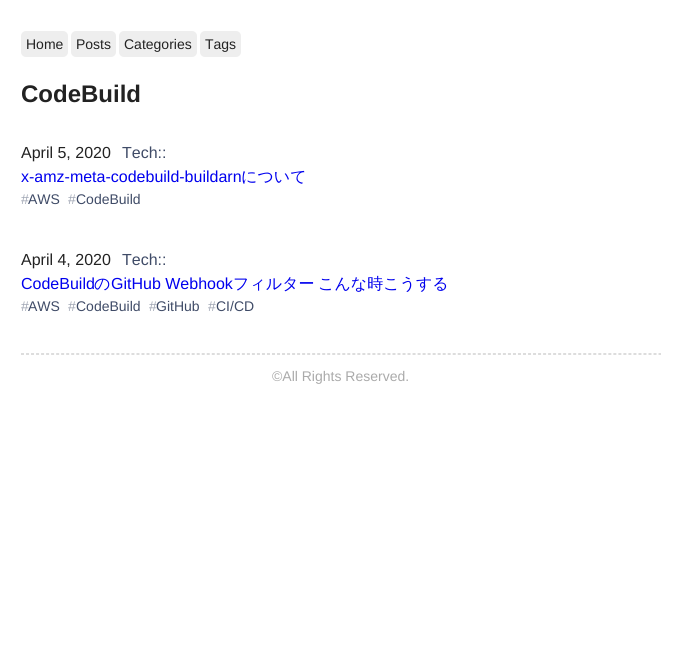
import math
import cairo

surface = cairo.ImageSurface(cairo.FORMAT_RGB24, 681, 654)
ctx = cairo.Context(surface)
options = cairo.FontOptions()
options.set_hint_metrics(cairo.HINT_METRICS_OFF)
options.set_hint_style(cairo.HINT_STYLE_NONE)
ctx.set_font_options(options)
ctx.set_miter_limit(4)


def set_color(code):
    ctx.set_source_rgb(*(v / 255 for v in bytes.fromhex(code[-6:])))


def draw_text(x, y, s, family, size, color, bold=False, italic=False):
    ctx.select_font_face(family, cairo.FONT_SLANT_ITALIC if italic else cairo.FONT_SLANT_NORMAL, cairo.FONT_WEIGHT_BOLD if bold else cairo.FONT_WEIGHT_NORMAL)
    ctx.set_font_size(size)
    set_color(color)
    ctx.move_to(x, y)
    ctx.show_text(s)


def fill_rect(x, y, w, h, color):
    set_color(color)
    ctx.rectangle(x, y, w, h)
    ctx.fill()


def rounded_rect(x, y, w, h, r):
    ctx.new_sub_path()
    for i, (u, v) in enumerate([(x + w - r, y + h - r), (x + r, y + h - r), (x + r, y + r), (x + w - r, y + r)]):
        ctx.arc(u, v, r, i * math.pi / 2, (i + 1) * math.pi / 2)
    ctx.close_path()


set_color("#ffffff")
ctx.paint()
set_color("#eeeeee")
rounded_rect(21, 31, 47, 26, 5)
ctx.fill()
draw_text(26, 49, "Home", "Liberation Sans", 14, "#222222")
set_color("#eeeeee")
rounded_rect(71, 31, 45, 26, 5)
ctx.fill()
draw_text(76, 49, "Posts", "Liberation Sans", 14, "#222222")
set_color("#eeeeee")
rounded_rect(119, 31, 78, 26, 5)
ctx.fill()
draw_text(124, 49, "Categories", "Liberation Sans", 14, "#222222")
set_color("#eeeeee")
rounded_rect(200, 31, 41, 26, 5)
ctx.fill()
draw_text(205, 49, "Tags", "Liberation Sans", 14, "#222222")
draw_text(21, 102, "CodeBuild", "Liberation Sans", 24, "#222222", bold=True)
draw_text(21, 158, "April 5, 2020", "Liberation Sans", 16, "#222222")
draw_text(122, 158, "Tech::", "Liberation Sans", 16, "#3f4b67")
draw_text(21, 182, "x-amz-meta-codebuild-buildarn", "Liberation Sans", 16, "#0000ee")
draw_text(241, 182, "について", "WenQuanYi Zen Hei Medium", 16, "#0000ee")
draw_text(28, 204, "AWS", "Liberation Sans", 14, "#3f4b67")
draw_text(21, 204, "#", "Liberation Sans", 14, "#9fa5b3")
draw_text(68, 204, "#", "Liberation Sans", 14, "#9fa5b3")
draw_text(76, 204, "CodeBuild", "Liberation Sans", 14, "#3f4b67")
draw_text(21, 265, "April 4, 2020", "Liberation Sans", 16, "#222222")
draw_text(122, 265, "Tech::", "Liberation Sans", 16, "#3f4b67")
draw_text(21, 289, "CodeBuild", "Liberation Sans", 16, "#0000ee")
draw_text(94, 289, "の", "WenQuanYi Zen Hei Medium", 16, "#0000ee")
draw_text(111, 289, "GitHub Webhook", "Liberation Sans", 16, "#0000ee")
draw_text(233, 289, "フィルター", "WenQuanYi Zen Hei Medium", 16, "#0000ee")
draw_text(318, 289, "こんな時こうする", "WenQuanYi Zen Hei Medium", 16, "#0000ee")
draw_text(28, 311, "AWS", "Liberation Sans", 14, "#3f4b67")
draw_text(21, 311, "#", "Liberation Sans", 14, "#9fa5b3")
draw_text(68, 311, "#", "Liberation Sans", 14, "#9fa5b3")
draw_text(76, 311, "CodeBuild", "Liberation Sans", 14, "#3f4b67")
draw_text(149, 311, "#", "Liberation Sans", 14, "#9fa5b3")
draw_text(156, 311, "GitHub", "Liberation Sans", 14, "#3f4b67")
draw_text(208, 311, "#", "Liberation Sans", 14, "#9fa5b3")
draw_text(216, 311, "CI/CD", "Liberation Sans", 14, "#3f4b67")
ctx.new_path()
ctx.move_to(21, 353.5)
ctx.line_to(661, 353.5)
set_color("#dddddd")
ctx.set_line_width(1)
ctx.set_dash([3, 2.02])
ctx.stroke()
fill_rect(660, 353, 1, 2, "#dddddd")
ctx.new_path()
ctx.move_to(21, 354.5)
ctx.line_to(661, 354.5)
ctx.stroke()
draw_text(272, 381, "©All Rights Reserved.", "Liberation Sans", 14, "#aaaaaa")
surface.write_to_png("output.png")
